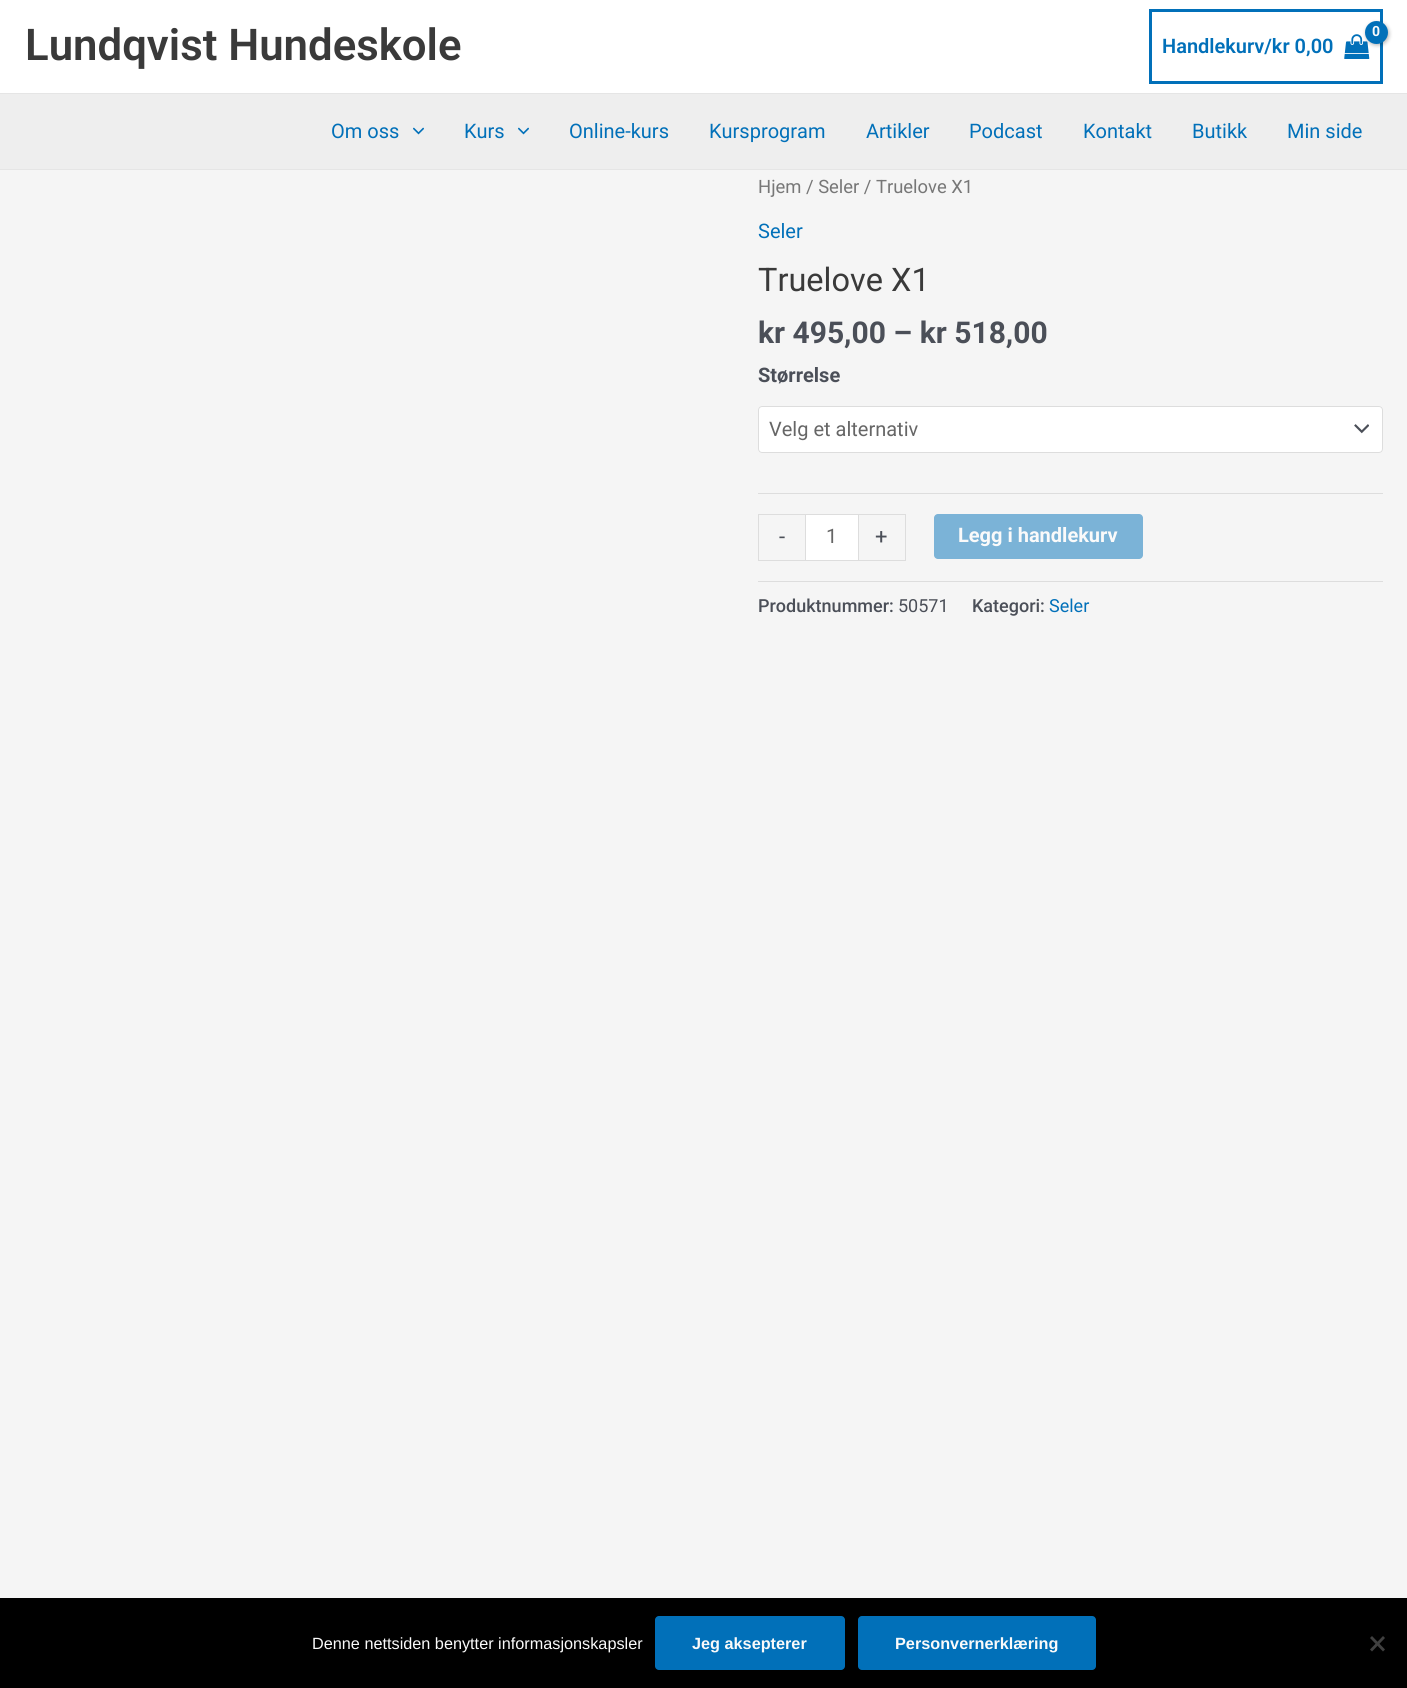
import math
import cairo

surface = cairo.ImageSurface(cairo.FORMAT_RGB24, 1407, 1688)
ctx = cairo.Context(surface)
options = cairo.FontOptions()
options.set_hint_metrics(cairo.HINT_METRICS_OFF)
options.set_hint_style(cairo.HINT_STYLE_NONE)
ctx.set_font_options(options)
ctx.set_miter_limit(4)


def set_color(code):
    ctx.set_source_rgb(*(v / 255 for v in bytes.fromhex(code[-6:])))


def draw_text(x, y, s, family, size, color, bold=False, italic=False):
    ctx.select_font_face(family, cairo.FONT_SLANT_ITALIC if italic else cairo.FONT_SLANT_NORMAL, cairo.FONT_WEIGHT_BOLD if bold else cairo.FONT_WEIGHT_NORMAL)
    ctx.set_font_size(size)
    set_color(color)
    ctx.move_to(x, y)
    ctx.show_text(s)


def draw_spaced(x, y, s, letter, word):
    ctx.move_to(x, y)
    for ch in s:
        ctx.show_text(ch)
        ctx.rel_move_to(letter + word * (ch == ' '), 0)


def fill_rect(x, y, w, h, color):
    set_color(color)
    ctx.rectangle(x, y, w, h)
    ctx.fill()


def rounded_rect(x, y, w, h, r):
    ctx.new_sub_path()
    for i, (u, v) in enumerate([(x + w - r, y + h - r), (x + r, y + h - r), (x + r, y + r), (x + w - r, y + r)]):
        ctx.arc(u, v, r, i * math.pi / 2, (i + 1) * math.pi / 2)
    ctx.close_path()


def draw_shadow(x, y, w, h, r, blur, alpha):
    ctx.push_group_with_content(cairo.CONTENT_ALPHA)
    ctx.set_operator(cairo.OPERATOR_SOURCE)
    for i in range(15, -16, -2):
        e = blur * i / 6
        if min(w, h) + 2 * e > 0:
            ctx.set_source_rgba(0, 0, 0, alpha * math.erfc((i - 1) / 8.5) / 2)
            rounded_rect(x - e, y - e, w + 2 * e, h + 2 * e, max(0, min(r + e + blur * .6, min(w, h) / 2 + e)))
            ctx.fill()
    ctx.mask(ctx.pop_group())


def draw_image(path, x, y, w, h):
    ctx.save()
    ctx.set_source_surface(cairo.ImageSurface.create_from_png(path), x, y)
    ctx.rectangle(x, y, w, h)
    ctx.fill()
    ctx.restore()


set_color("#f5f5f5")
ctx.paint()
fill_rect(0, 0, 1407, 93, "#ffffff")
fill_rect(0, 93, 1407, 1, "#e5e5e5")
draw_text(25, 60, "Lundqvist Hundeskole", "Roboto SemiBold", 43.75, "#3a3a3a")
ctx.rectangle(1150.5, 10.5, 231, 72)
set_color("#0170b9")
ctx.set_line_width(3)
ctx.stroke()
draw_image("assets/img1.png", 1344, 34, 26, 25)
set_color("#000000")
draw_shadow(1366, 23, 23, 22, 11, 2, 0.3)
set_color("#0170b9")
ctx.arc(1376.5, 32.5, 11.5, 0, 2 * math.pi)
ctx.fill()
ctx.select_font_face("Roboto", cairo.FONT_SLANT_NORMAL, cairo.FONT_WEIGHT_BOLD)
ctx.set_font_size(14)
set_color("#fafafa")
draw_spaced(1372, 36, "0", -1, 0)
draw_text(1162, 53, "Handlekurv/kr 0,00", "Roboto SemiBold", 20, "#0170b9")
fill_rect(0, 94, 1407, 75, "#eeeeee")
fill_rect(0, 169, 1407, 1, "#e5e5e5")
draw_text(331, 138, "Om oss", "Roboto", 20, "#0170b9")
draw_image("assets/img2.png", 413, 127, 11, 8)
draw_text(464, 138, "Kurs", "Roboto", 20, "#0170b9")
draw_image("assets/img2.png", 518, 127, 11, 8)
draw_text(569, 138, "Online-kurs", "Roboto", 20, "#0170b9")
draw_text(709, 138, "Kursprogram", "Roboto", 20, "#0170b9")
draw_text(866, 138, "Artikler", "Roboto", 20, "#0170b9")
draw_text(969, 138, "Podcast", "Roboto", 20, "#0170b9")
draw_text(1083, 138, "Kontakt", "Roboto", 20, "#0170b9")
draw_text(1192, 138, "Butikk", "Roboto", 20, "#0170b9")
draw_text(1287, 138, "Min side", "Roboto", 20, "#0170b9")
draw_text(758, 193, "Hjem / Seler / Truelove X1", "Roboto", 18.4, "#777777")
draw_text(758, 238, "Seler", "Roboto", 20, "#0170b9")
draw_text(758, 291, "Truelove X1", "Roboto", 32.5, "#3a3a3a")
draw_text(758, 343, "kr 495,00 – kr 518,00", "Roboto", 30, "#4b4f58", bold=True)
fill_rect(758, 493, 625, 1, "#dddddd")
draw_text(758, 382, "Størrelse", "Roboto", 20, "#4b4f58", bold=True)
set_color("#ffffff")
rounded_rect(758, 406, 625, 47, 4)
ctx.fill()
draw_image("assets/img3.png", 1354, 424, 15, 10)
rounded_rect(758.5, 406.5, 624, 46, 3.5)
set_color("#dddddd")
ctx.set_line_width(1)
ctx.stroke()
draw_text(769, 436, "Velg et alternativ", "Roboto", 20, "#666666")
fill_rect(758, 514, 47, 1, "#dddddd")
fill_rect(758, 560, 47, 1, "#dddddd")
fill_rect(758, 514, 1, 47, "#dddddd")
draw_text(779, 544, "-", "Roboto", 22, "#4b4f58")
set_color("#ffffff")
ctx.rectangle(805.5, 514.5, 53, 46)
ctx.fill_preserve()
set_color("#dddddd")
ctx.stroke()
draw_text(826, 543, "1", "Roboto", 20, "#666666")
fill_rect(859, 514, 47, 1, "#dddddd")
fill_rect(905, 514, 1, 47, "#dddddd")
fill_rect(859, 560, 47, 1, "#dddddd")
draw_text(875, 544, "+", "Roboto", 22, "#4b4f58")
set_color("#7bb3d7")
rounded_rect(934, 514, 209, 45, 4)
ctx.fill()
draw_text(958, 542, "Legg i handlekurv", "Roboto", 20, "#fafafa", bold=True)
fill_rect(758, 581, 625, 1, "#dddddd")
draw_text(758, 612, "Produktnummer:", "Roboto Medium", 18, "#4b4f58")
draw_text(898, 612, "50571", "Roboto", 18, "#4b4f58")
draw_text(972, 612, "Kategori:", "Roboto Medium", 18, "#4b4f58")
draw_text(1049, 612, "Seler", "Roboto", 18, "#0170b9")
fill_rect(0, 1598, 1407, 90, "#000000")
draw_text(312, 1649, "Denne nettsiden benytter informasjonskapsler", "Liberation Sans", 16.25, "#fafafa")
set_color("#0170b9")
rounded_rect(655, 1616, 190, 54, 4)
ctx.fill()
draw_text(692, 1649, "Jeg aksepterer", "Liberation Sans", 16.25, "#fafafa", bold=True)
set_color("#0170b9")
rounded_rect(858, 1616, 238, 54, 4)
ctx.fill()
draw_text(895, 1649, "Personvernerklæring", "Liberation Sans", 16.25, "#fafafa", bold=True)
set_color("#404040")
ctx.new_path()
ctx.move_to(1383, 1636)
ctx.line_to(1385, 1638)
ctx.line_to(1372, 1651.5)
ctx.line_to(1370, 1649.5)
ctx.close_path()
ctx.fill()
ctx.new_path()
ctx.move_to(1370, 1638)
ctx.line_to(1372, 1636)
ctx.line_to(1385, 1649.5)
ctx.line_to(1383, 1651.5)
ctx.close_path()
ctx.fill()
surface.write_to_png("output.png")
